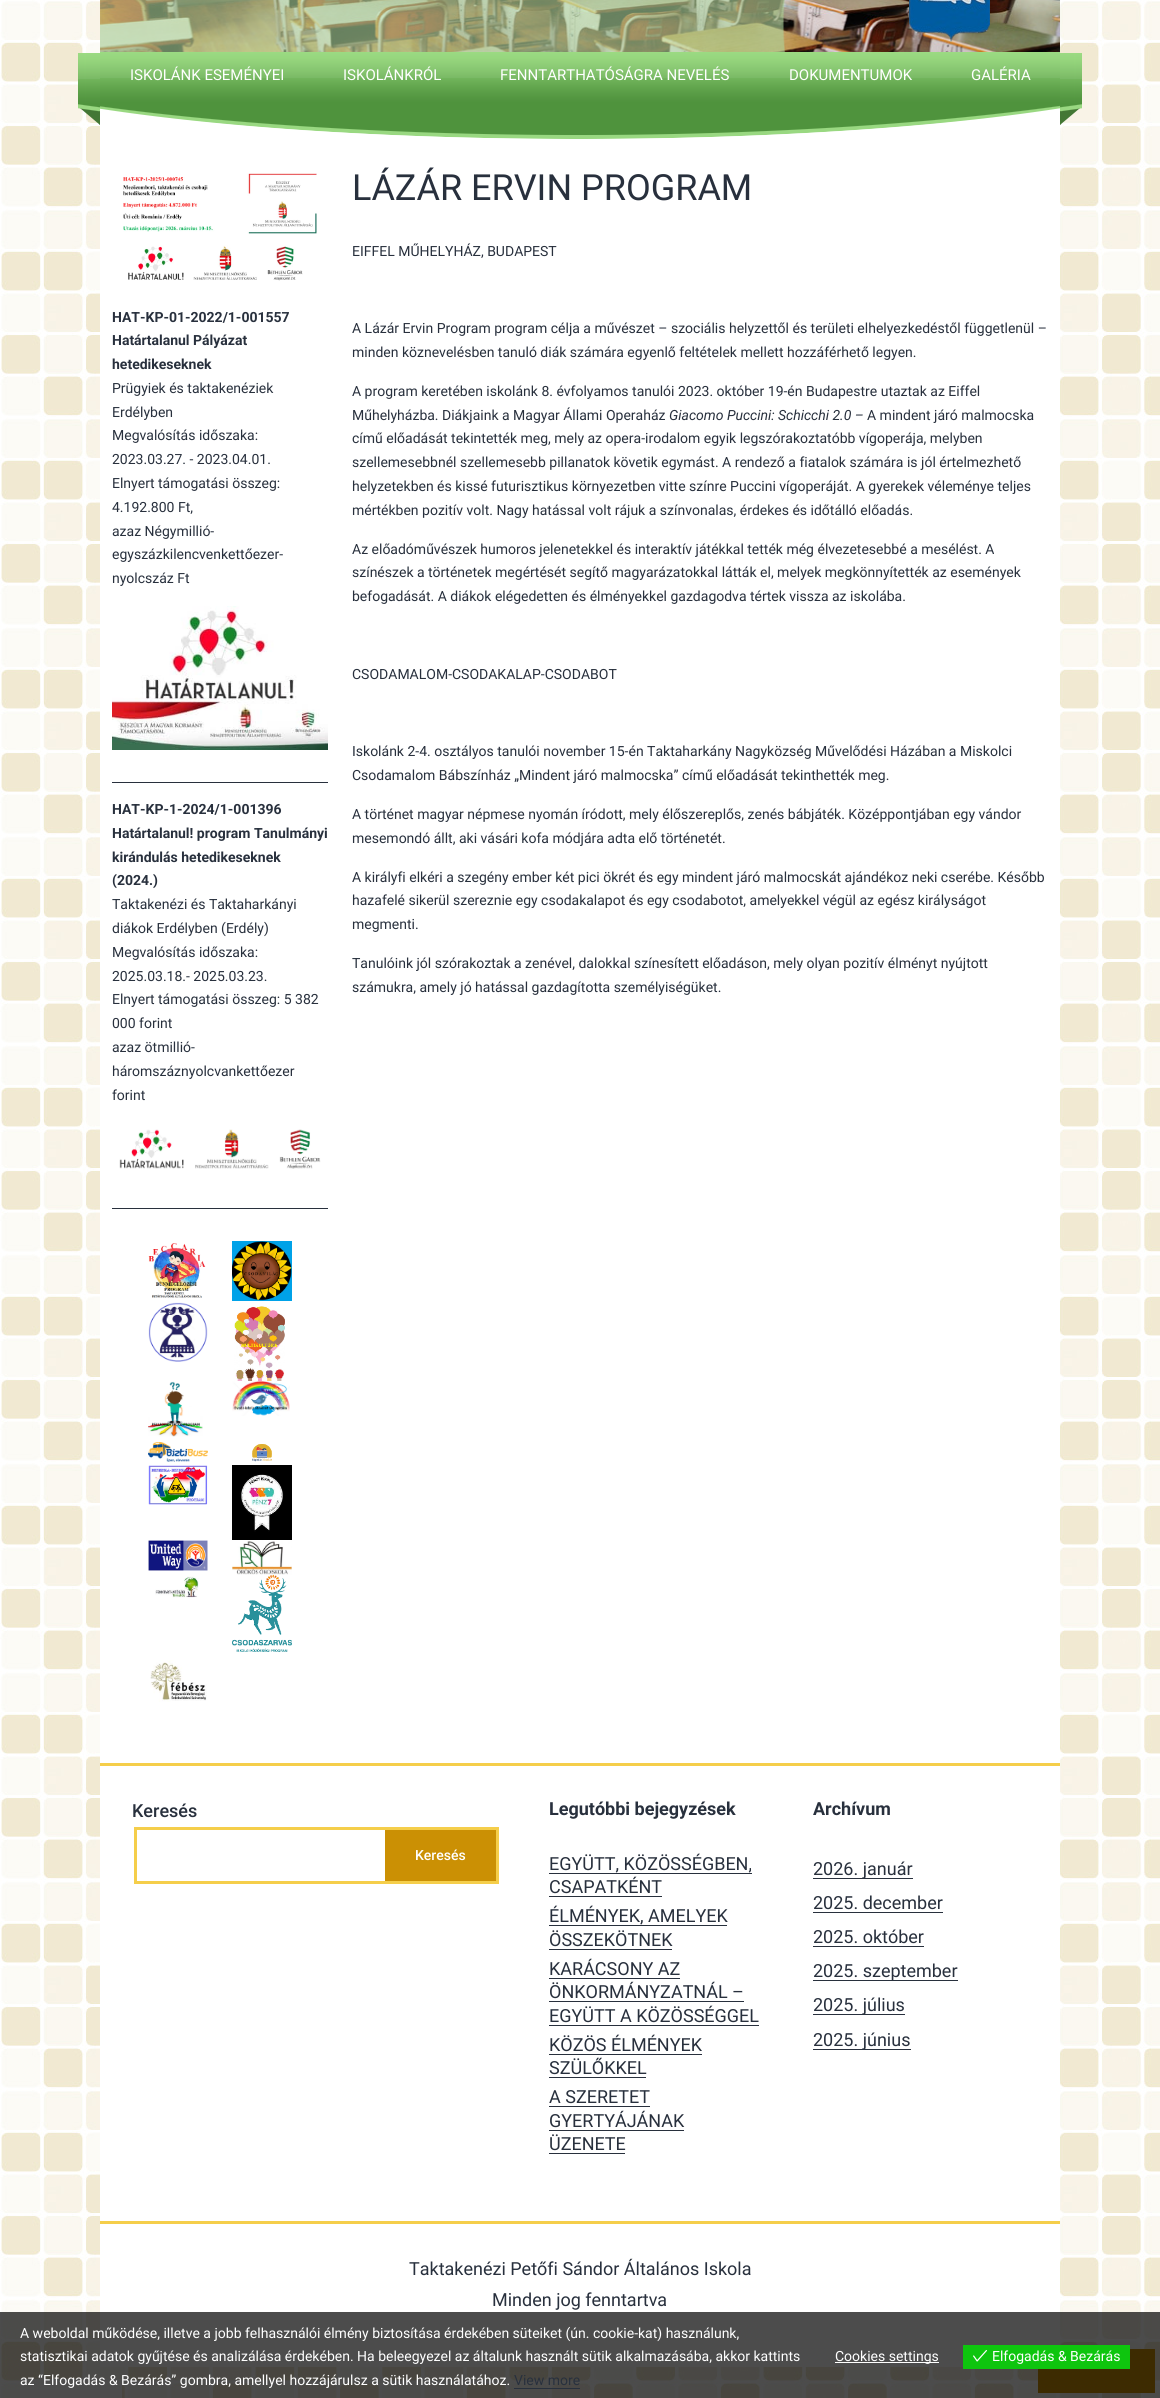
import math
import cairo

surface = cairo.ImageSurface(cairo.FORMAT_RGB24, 1160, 2398)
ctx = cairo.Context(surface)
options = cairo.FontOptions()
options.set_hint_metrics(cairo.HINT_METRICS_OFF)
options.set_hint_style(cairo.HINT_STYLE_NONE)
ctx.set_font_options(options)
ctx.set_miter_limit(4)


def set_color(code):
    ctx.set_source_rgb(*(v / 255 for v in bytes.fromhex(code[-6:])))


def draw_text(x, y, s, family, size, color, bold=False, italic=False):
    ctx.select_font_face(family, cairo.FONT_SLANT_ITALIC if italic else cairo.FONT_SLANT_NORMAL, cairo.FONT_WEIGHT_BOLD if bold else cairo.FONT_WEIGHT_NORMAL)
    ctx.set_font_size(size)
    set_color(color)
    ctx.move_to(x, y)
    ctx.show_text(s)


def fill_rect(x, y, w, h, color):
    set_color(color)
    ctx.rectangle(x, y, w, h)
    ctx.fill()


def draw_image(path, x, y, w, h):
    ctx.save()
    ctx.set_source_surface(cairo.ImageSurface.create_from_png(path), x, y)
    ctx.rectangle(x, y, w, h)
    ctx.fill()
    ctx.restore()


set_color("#ffffff")
ctx.paint()
draw_image("assets/img1.png", 0, 0, 1160, 2398)
fill_rect(100, 108, 960, 1655, "#ffffff")
draw_image("assets/img2.png", 100, 102, 960, 37)
draw_image("assets/img3.png", 100, 0, 960, 52)
draw_image("assets/img4.png", 100, 0, 686, 52)
draw_image("assets/img5.png", 909, 0, 81, 42)
draw_image("assets/img6.png", 78, 53, 22, 72)
draw_image("assets/img7.png", 100, 52, 213, 50)
draw_text(130, 80, "ISKOLÁNK ESEMÉNYEI", "Roboto", 15, "#ffffff")
draw_image("assets/img8.png", 313, 52, 158, 50)
draw_text(343, 80, "ISKOLÁNKRÓL", "Roboto", 15, "#ffffff")
draw_image("assets/img9.png", 471, 52, 288, 50)
draw_text(500, 80, "FENNTARTHATÓSÁGRA NEVELÉS", "Roboto", 15, "#ffffff")
draw_image("assets/img10.png", 759, 52, 182, 50)
draw_text(789, 80, "DOKUMENTUMOK", "Roboto", 15, "#ffffff")
draw_image("assets/img11.png", 941, 52, 119, 50)
draw_text(971, 80, "GALÉRIA", "Roboto", 15, "#ffffff")
draw_image("assets/img12.png", 1060, 53, 22, 72)
draw_image("assets/img13.png", 123, 173, 194, 108)
draw_text(112, 322, "HAT-KP-01-2022/1-001557", "Roboto", 14, "#28303d", bold=True)
draw_text(112, 345, "Határtalanul Pályázat", "Roboto", 14, "#28303d", bold=True)
draw_text(112, 369, "hetedikeseknek", "Roboto", 14, "#28303d", bold=True)
draw_text(112, 393, "Prügyiek és taktakenéziek", "Roboto", 14, "#28303d")
draw_text(112, 417, "Erdélyben", "Roboto", 14, "#28303d")
draw_text(112, 440, "Megvalósítás időszaka:", "Roboto", 14, "#28303d")
draw_text(112, 464, "2023.03.27. - 2023.04.01.", "Roboto", 14, "#28303d")
draw_text(112, 488, "Elnyert támogatási összeg:", "Roboto", 14, "#28303d")
draw_text(112, 512, "4.192.800 Ft,", "Roboto", 14, "#28303d")
draw_text(112, 536, "azaz Négymillió-", "Roboto", 14, "#28303d")
draw_text(112, 559, "egyszázkilencvenkettőezer-", "Roboto", 14, "#28303d")
draw_text(112, 583, "nyolcszáz Ft", "Roboto", 14, "#28303d")
draw_image("assets/img14.png", 112, 606, 216, 144)
fill_rect(112, 782, 216, 1, "#28303d")
draw_text(112, 814, "HAT-KP-1-2024/1-001396", "Roboto", 14, "#28303d", bold=True)
draw_text(112, 838, "Határtalanul! program Tanulmányi", "Roboto", 14, "#28303d", bold=True)
draw_text(112, 862, "kirándulás hetedikeseknek", "Roboto", 14, "#28303d", bold=True)
draw_text(112, 885, "(2024.)", "Roboto", 14, "#28303d", bold=True)
draw_text(112, 909, "Taktakenézi és Taktaharkányi", "Roboto", 14, "#28303d")
draw_text(112, 933, "diákok Erdélyben (Erdély)", "Roboto", 14, "#28303d")
draw_text(112, 957, "Megvalósítás időszaka:", "Roboto", 14, "#28303d")
draw_text(112, 981, "2025.03.18.- 2025.03.23.", "Roboto", 14, "#28303d")
draw_text(112, 1004, "Elnyert támogatási összeg: 5 382", "Roboto", 14, "#28303d")
draw_text(112, 1028, "000 forint", "Roboto", 14, "#28303d")
draw_text(112, 1052, "azaz ötmillió-", "Roboto", 14, "#28303d")
draw_text(112, 1076, "háromszáznyolcvankettőezer", "Roboto", 14, "#28303d")
draw_text(112, 1100, "forint", "Roboto", 14, "#28303d")
draw_image("assets/img15.png", 119, 1129, 202, 40)
fill_rect(112, 1208, 216, 1, "#28303d")
draw_image("assets/img16.png", 148, 1243, 58, 55)
draw_image("assets/img17.png", 232, 1241, 60, 60)
draw_image("assets/img18.png", 148, 1302, 60, 60)
draw_image("assets/img19.png", 234, 1306, 51, 75)
draw_image("assets/img20.png", 148, 1381, 55, 56)
draw_image("assets/img21.png", 232, 1381, 58, 35)
draw_image("assets/img22.png", 148, 1442, 60, 20)
draw_image("assets/img23.png", 252, 1444, 20, 18)
draw_image("assets/img24.png", 148, 1465, 60, 40)
draw_image("assets/img25.png", 232, 1465, 60, 75)
draw_image("assets/img26.png", 148, 1540, 60, 31)
draw_image("assets/img27.png", 232, 1540, 60, 35)
draw_image("assets/img28.png", 155, 1576, 44, 22)
draw_image("assets/img29.png", 232, 1575, 60, 77)
draw_image("assets/img30.png", 150, 1660, 57, 42)
draw_text(352, 200, "LÁZÁR ERVIN PROGRAM", "Roboto", 36, "#28303d")
draw_text(352, 256, "EIFFEL MŰHELYHÁZ, BUDAPEST", "Roboto", 14, "#28303d")
draw_text(352, 333, "A Lázár Ervin Program program célja a művészet – szociális helyzettől és területi elhelyezkedéstől függetlenül –", "Roboto", 14, "#28303d")
draw_text(352, 357, "minden köznevelésben tanuló diák számára egyenlő feltételek mellett hozzáférhető legyen.", "Roboto", 14, "#28303d")
draw_text(352, 396, "A program keretében iskolánk 8. évfolyamos tanulói 2023. október 19-én Budapestre utaztak az Eiffel", "Roboto", 14, "#28303d")
draw_text(352, 420, "Műhelyházba. Diákjaink a Magyar Állami Operaház", "Roboto", 14, "#28303d")
draw_text(669, 420, "Giacomo Puccini: Schicchi 2.0 –", "Roboto", 14, "#28303d", italic=True)
draw_text(867, 420, "A mindent járó malmocska", "Roboto", 14, "#28303d")
draw_text(352, 443, "című előadását tekintették meg, mely az opera-irodalom egyik legszórakoztatóbb vígoperája, melyben", "Roboto", 14, "#28303d")
draw_text(352, 467, "szellemesebbnél szellemesebb pillanatok követik egymást. A rendező a fiatalok számára is jól értelmezhető", "Roboto", 14, "#28303d")
draw_text(352, 491, "helyzetekben és kissé futurisztikus környezetben vitte színre Puccini vígoperáját. A gyerekek véleménye teljes", "Roboto", 14, "#28303d")
draw_text(352, 515, "mértékben pozitív volt. Nagy hatással volt rájuk a színvonalas, érdekes és időtálló előadás.", "Roboto", 14, "#28303d")
draw_text(352, 554, "Az előadóművészek humoros jelenetekkel és interaktív játékkal tették még élvezetesebbé a mesélést. A", "Roboto", 14, "#28303d")
draw_text(352, 577, "színészek a történetek megértését segítő magyarázatokkal látták el, melyek megkönnyítették az események", "Roboto", 14, "#28303d")
draw_text(352, 601, "befogadását. A diákok elégedetten és élményekkel gazdagodva tértek vissza az iskolába.", "Roboto", 14, "#28303d")
draw_text(352, 679, "CSODAMALOM-CSODAKALAP-CSODABOT", "Roboto", 14, "#28303d")
draw_text(352, 756, "Iskolánk 2-4. osztályos tanulói november 15-én Taktaharkány Nagyközség Művelődési Házában a Miskolci", "Roboto", 14, "#28303d")
draw_text(352, 780, "Csodamalom Bábszínház „Mindent járó malmocska” című előadását tekinthették meg.", "Roboto", 14, "#28303d")
draw_text(352, 819, "A történet magyar népmese nyomán íródott, mely élőszereplős, zenés bábjáték. Középpontjában egy vándor", "Roboto", 14, "#28303d")
draw_text(352, 843, "mesemondó állt, aki vásári kofa módjára adta elő történetét.", "Roboto", 14, "#28303d")
draw_text(352, 882, "A királyfi elkéri a szegény ember két pici ökrét és egy mindent járó malmocskát ajándékoz neki cserébe. Később", "Roboto", 14, "#28303d")
draw_text(352, 905, "hazafelé sikerül szereznie egy csodakalapot és egy csodabotot, amelyekkel végül az egész királyságot", "Roboto", 14, "#28303d")
draw_text(352, 929, "megmenti.", "Roboto", 14, "#28303d")
draw_text(352, 968, "Tanulóink jól szórakoztak a zenével, dalokkal színesített előadáson, mely olyan pozitív élményt nyújtott", "Roboto", 14, "#28303d")
draw_text(352, 992, "számukra, amely jó hatással gazdagította személyiségüket.", "Roboto", 14, "#28303d")
fill_rect(100, 1763, 960, 3, "#f5ce4a")
fill_rect(100, 1766, 960, 601, "#ffffff")
draw_text(132, 1817, "Keresés", "Roboto Medium", 18, "#28303d")
ctx.rectangle(135.5, 1828.5, 251, 54)
set_color("#f5ce4a")
ctx.set_line_width(3)
ctx.stroke()
fill_rect(385, 1830, 111, 51, "#cb9004")
fill_rect(385, 1827, 114, 3, "#f5ce4a")
fill_rect(496, 1827, 3, 57, "#f5ce4a")
fill_rect(385, 1881, 114, 3, "#f5ce4a")
draw_text(415, 1860, "Keresés", "Roboto Medium", 14, "#ffffff")
draw_text(549, 1815, "Legutóbbi bejegyzések", "Roboto", 18, "#28303d", bold=True)
draw_text(549, 1870, "EGYÜTT, KÖZÖSSÉGBEN,", "Roboto", 18, "#28303d")
fill_rect(549, 1873, 203, 1, "#28303d")
draw_text(549, 1893, "CSAPATKÉNT", "Roboto", 18, "#28303d")
fill_rect(549, 1896, 113, 1, "#28303d")
draw_text(549, 1922, "ÉLMÉNYEK, AMELYEK", "Roboto", 18, "#28303d")
fill_rect(549, 1925, 178, 1, "#28303d")
draw_text(549, 1946, "ÖSSZEKÖTNEK", "Roboto", 18, "#28303d")
fill_rect(549, 1949, 123, 1, "#28303d")
draw_text(549, 1975, "KARÁCSONY AZ", "Roboto", 18, "#28303d")
fill_rect(549, 1978, 131, 1, "#28303d")
draw_text(549, 1998, "ÖNKORMÁNYZATNÁL –", "Roboto", 18, "#28303d")
fill_rect(549, 2001, 195, 1, "#28303d")
draw_text(549, 2022, "EGYÜTT A KÖZÖSSÉGGEL", "Roboto", 18, "#28303d")
fill_rect(549, 2025, 210, 1, "#28303d")
draw_text(549, 2051, "KÖZÖS ÉLMÉNYEK", "Roboto", 18, "#28303d")
fill_rect(549, 2054, 153, 1, "#28303d")
draw_text(549, 2074, "SZÜLŐKKEL", "Roboto", 18, "#28303d")
fill_rect(549, 2077, 97, 1, "#28303d")
draw_text(549, 2103, "A SZERETET", "Roboto", 18, "#28303d")
fill_rect(549, 2106, 101, 1, "#28303d")
draw_text(549, 2127, "GYERTYÁJÁNAK", "Roboto", 18, "#28303d")
fill_rect(549, 2130, 135, 1, "#28303d")
draw_text(549, 2150, "ÜZENETE", "Roboto", 18, "#28303d")
fill_rect(549, 2153, 76, 1, "#28303d")
draw_text(813, 1815, "Archívum", "Roboto", 18, "#28303d", bold=True)
fill_rect(813, 1878, 100, 1, "#28303d")
draw_text(813, 1875, "2026. január", "Roboto", 18, "#28303d")
draw_text(813, 1909, "2025. december", "Roboto", 18, "#28303d")
fill_rect(813, 1912, 130, 1, "#28303d")
draw_text(813, 1943, "2025. október", "Roboto", 18, "#28303d")
fill_rect(813, 1946, 111, 1, "#28303d")
fill_rect(813, 1980, 145, 1, "#28303d")
draw_text(813, 1977, "2025. szeptember", "Roboto", 18, "#28303d")
fill_rect(813, 2014, 92, 1, "#28303d")
draw_text(813, 2011, "2025. július", "Roboto", 18, "#28303d")
fill_rect(813, 2049, 98, 1, "#28303d")
draw_text(813, 2046, "2025. június", "Roboto", 18, "#28303d")
fill_rect(100, 2221, 960, 3, "#f5ce4a")
draw_text(409, 2275, "Taktakenézi Petőfi Sándor Általános Iskola", "Roboto", 18, "#28303d")
draw_text(492, 2306, "Minden jog fenntartva", "Roboto", 18, "#28303d")
fill_rect(20, 2379, 102, 19, "#ffffff")
set_color("#cb9004")
ctx.rectangle(1039, 2350, 115, 42)
ctx.fill_preserve()
ctx.set_line_width(2)
ctx.stroke()
ctx.set_source_rgba(0, 0, 0, 0.7)
ctx.rectangle(0, 2312, 1160, 86)
ctx.fill()
draw_text(20, 2338, "A weboldal működése, illetve a jobb felhasználói élmény biztosítása érdekében süteiket (ún. cookie-kat) használunk,", "Roboto", 14, "#ffffff")
draw_text(20, 2361, "statisztikai adatok gyűjtése és analizálása érdekében. Ha beleegyezel az általunk használt sütik alkalmazásába, akkor kattints", "Roboto", 14, "#ffffff")
draw_text(20, 2385, "az “Elfogadás & Bezárás” gombra, amellyel hozzájárulsz a sütik használatához.", "Roboto", 14, "#ffffff")
draw_text(514, 2385, "View more", "Roboto", 14, "#28303d")
fill_rect(514, 2388, 66, 1, "#28303d")
fill_rect(835, 2362, 104, 1, "#ffffff")
draw_text(835, 2361, "Cookies settings", "Roboto", 14, "#ffffff")
fill_rect(963, 2345, 167, 24, "#0ec50e")
draw_image("assets/img31.png", 973, 2350, 14, 12)
draw_text(992, 2361, "Elfogadás & Bezárás", "Roboto", 14, "#ffffff")
surface.write_to_png("output.png")
